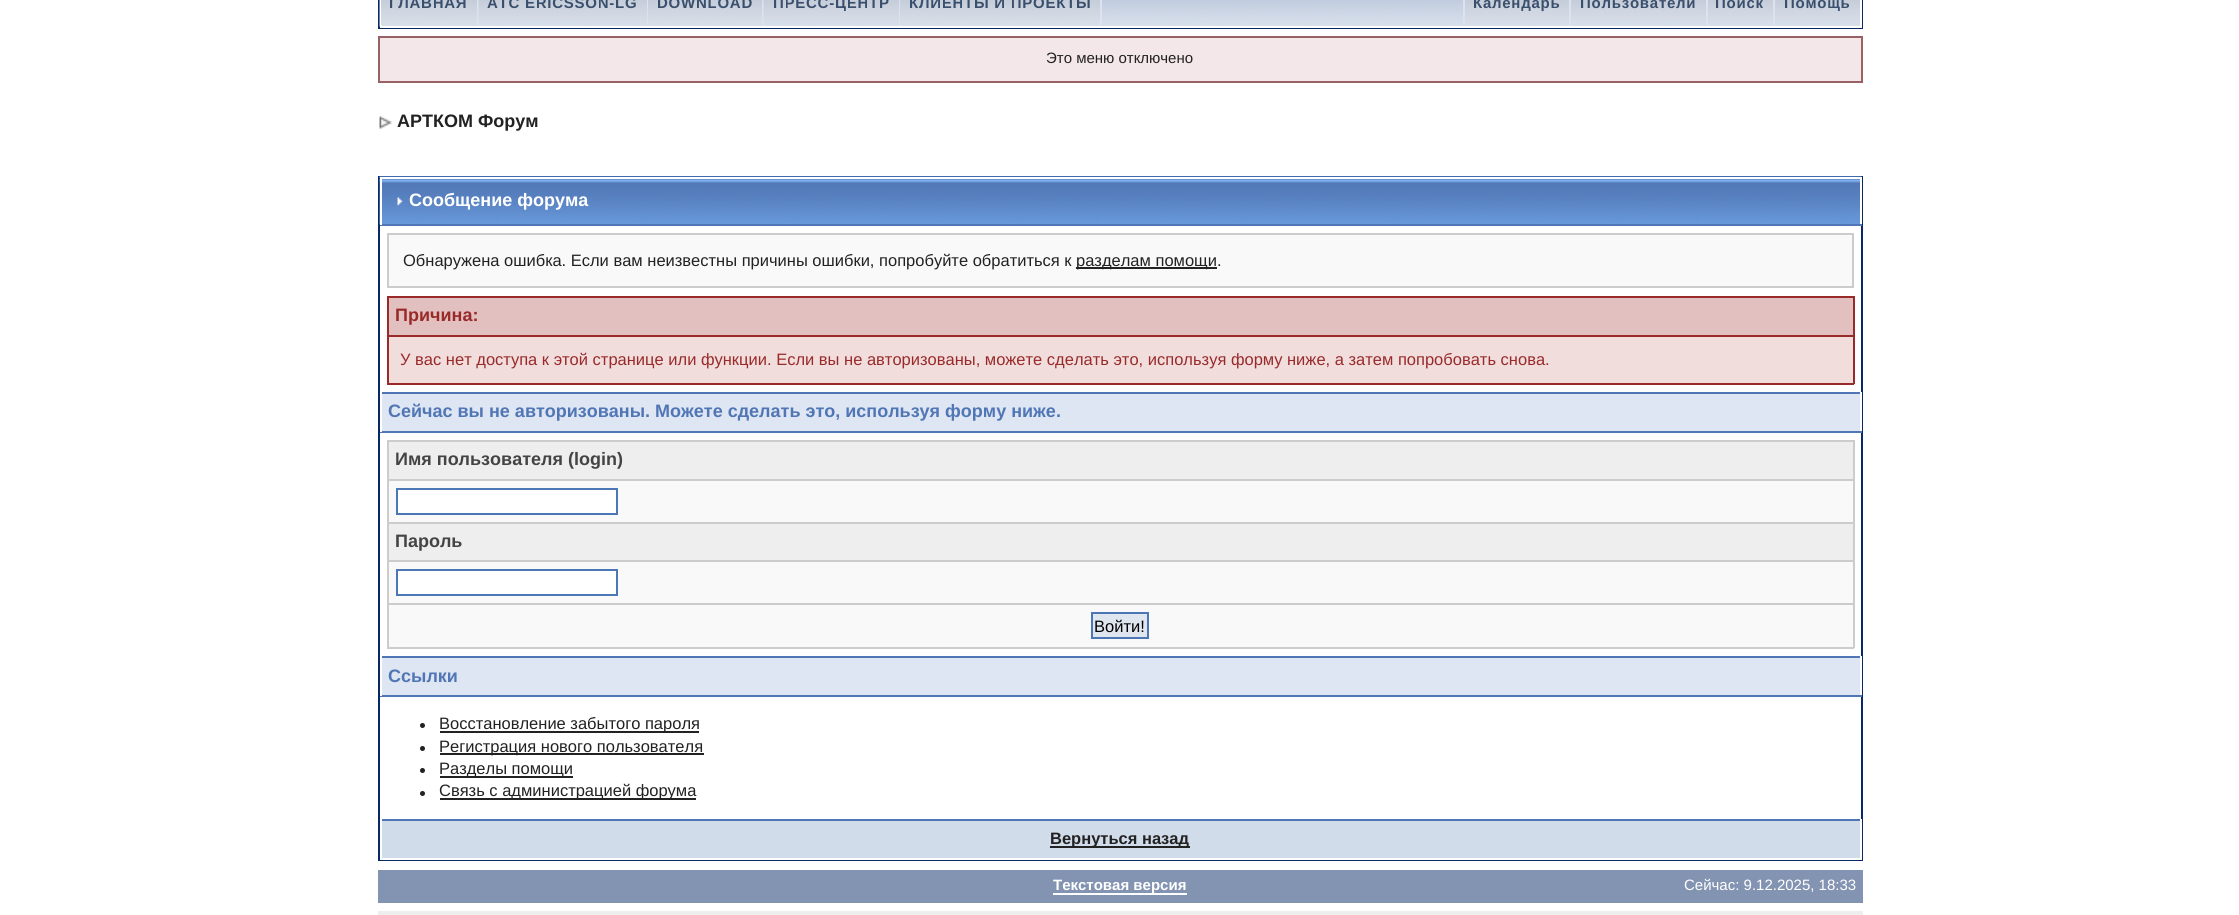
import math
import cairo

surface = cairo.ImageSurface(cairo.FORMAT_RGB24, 2239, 915)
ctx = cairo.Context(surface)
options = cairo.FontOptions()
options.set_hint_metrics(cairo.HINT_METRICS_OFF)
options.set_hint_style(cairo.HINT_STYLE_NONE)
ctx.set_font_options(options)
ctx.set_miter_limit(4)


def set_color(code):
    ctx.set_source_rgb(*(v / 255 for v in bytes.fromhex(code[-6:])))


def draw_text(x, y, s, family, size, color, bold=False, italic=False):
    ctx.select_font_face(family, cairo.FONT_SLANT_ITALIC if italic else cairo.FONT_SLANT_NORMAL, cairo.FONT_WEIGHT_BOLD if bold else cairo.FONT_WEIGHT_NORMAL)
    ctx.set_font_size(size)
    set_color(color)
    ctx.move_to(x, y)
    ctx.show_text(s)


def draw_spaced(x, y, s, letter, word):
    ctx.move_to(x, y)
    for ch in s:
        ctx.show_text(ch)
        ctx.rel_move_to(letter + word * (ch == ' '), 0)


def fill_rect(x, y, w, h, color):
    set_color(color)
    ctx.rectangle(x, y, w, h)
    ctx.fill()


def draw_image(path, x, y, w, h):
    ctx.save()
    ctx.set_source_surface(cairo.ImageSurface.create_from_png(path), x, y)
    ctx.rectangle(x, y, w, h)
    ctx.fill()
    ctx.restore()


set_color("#ffffff")
ctx.paint()
ctx.rectangle(379, -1, 1483, 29)
set_color("#072a66")
ctx.stroke()
draw_image("assets/img1.png", 379, 0, 1481, 27)
fill_rect(1861, 0, 1, 27, "#ffffff")
fill_rect(380, 26, 1482, 2, "#ffffff")
fill_rect(380, 0, 2, 27, "#ffffff")
draw_image("assets/img2.png", 381, 0, 96, 25)
fill_rect(477, 0, 2, 26, "#dce3ee")
ctx.select_font_face("Liberation Sans", cairo.FONT_SLANT_NORMAL, cairo.FONT_WEIGHT_BOLD)
ctx.set_font_size(15)
set_color("#3a4f6c")
draw_spaced(389, 8, "ГЛАВНАЯ", 0.75, 0)
draw_image("assets/img3.png", 478, 0, 169, 22)
fill_rect(647, 0, 2, 26, "#dce3ee")
set_color("#3a4f6c")
draw_spaced(487, 8, "АТС ERICSSON-LG", 0.75, 0)
draw_image("assets/img4.png", 648, 0, 114, 25)
fill_rect(762, 0, 2, 26, "#dce3ee")
set_color("#3a4f6c")
draw_spaced(657, 8, "DOWNLOAD", 0.75, 0)
draw_image("assets/img5.png", 763, 0, 136, 22)
fill_rect(899, 0, 2, 26, "#dce3ee")
set_color("#3a4f6c")
draw_spaced(773, 8, "ПРЕСС-ЦЕНТР", 0.75, 0)
draw_image("assets/img6.png", 900, 0, 200, 25)
fill_rect(1100, 0, 2, 26, "#dce3ee")
set_color("#3a4f6c")
draw_spaced(909, 8, "КЛИЕНТЫ И ПРОЕКТЫ", 0.75, 0)
draw_image("assets/img7.png", 1465, 0, 104, 22)
fill_rect(1463, 0, 2, 26, "#dce3ee")
set_color("#3a4f6c")
draw_spaced(1473, 8, "Календарь", 0.75, 0)
draw_image("assets/img8.png", 1571, 0, 134, 22)
fill_rect(1569, 0, 2, 26, "#dce3ee")
set_color("#3a4f6c")
draw_spaced(1580, 8, "Пользователи", 0.75, 0)
draw_image("assets/img9.png", 1708, 0, 65, 22)
fill_rect(1706, 0, 2, 26, "#dce3ee")
set_color("#3a4f6c")
draw_spaced(1715, 8, "Поиск", 0.75, 0)
draw_image("assets/img10.png", 1775, 0, 85, 22)
fill_rect(1773, 0, 2, 26, "#dce3ee")
set_color("#3a4f6c")
draw_spaced(1784, 8, "Помощь", 0.75, 0)
set_color("#f4e7ea")
ctx.rectangle(379, 37, 1483, 45)
ctx.fill_preserve()
set_color("#986265")
ctx.stroke()
draw_text(1046, 63, "Это меню отключено", "Liberation Sans", 15, "#222222")
draw_image("assets/img11.png", 379, 116, 13, 13)
draw_text(397, 127, "АРТКОМ Форум", "Liberation Sans", 18, "#222222", bold=True)
ctx.rectangle(379, 177, 1483, 683)
set_color("#072a66")
ctx.stroke()
draw_image("assets/img12.png", 379, 176, 1483, 49)
fill_rect(380, 177, 1482, 2, "#ffffff")
fill_rect(1860, 177, 2, 48, "#ffffff")
fill_rect(380, 224, 1482, 2, "#5176b5")
fill_rect(380, 177, 2, 48, "#ffffff")
draw_image("assets/img13.png", 397, 197, 6, 9)
draw_text(409, 206, "Сообщение форума", "Liberation Sans", 18, "#ffffff", bold=True)
set_color("#f9f9f9")
ctx.rectangle(388, 234, 1465, 53)
ctx.fill_preserve()
set_color("#cccccc")
ctx.stroke()
draw_text(403, 266, "Обнаружена ошибка. Если вам неизвестны причины ошибки, попробуйте обратиться к", "Liberation Sans", 16.5, "#222222")
fill_rect(1076, 267, 141, 2, "#222222")
draw_text(1076, 266, "разделам помощи.", "Liberation Sans", 16.5, "#222222")
fill_rect(389, 337, 1464, 46, "#f2dddd")
fill_rect(1853, 296, 2, 88, "#992a2a")
fill_rect(387, 383, 1467, 2, "#992a2a")
fill_rect(387, 296, 2, 88, "#992a2a")
fill_rect(389, 298, 1464, 37, "#e3c0c0")
fill_rect(389, 296, 1464, 2, "#992a2a")
fill_rect(389, 335, 1464, 2, "#992a2a")
draw_text(395, 321, "Причина:", "Liberation Sans", 18, "#992a2a", bold=True)
draw_text(400, 365, "У вас нет доступа к этой странице или функции. Если вы не авторизованы, можете сделать это, используя форму ниже, а затем попробовать снова.", "Liberation Sans", 16.5, "#992a2a")
fill_rect(382, 394, 1478, 37, "#dde6f2")
fill_rect(380, 392, 1482, 2, "#5176b5")
fill_rect(1860, 392, 2, 40, "#ffffff")
fill_rect(380, 431, 1482, 2, "#5176b5")
fill_rect(380, 392, 2, 40, "#ffffff")
draw_text(388, 417, "Сейчас вы не авторизованы. Можете сделать это, используя форму ниже.", "Liberation Sans", 18, "#5176b5", bold=True)
fill_rect(389, 481, 1464, 166, "#f9f9f9")
fill_rect(1853, 440, 2, 208, "#cccccc")
fill_rect(387, 647, 1467, 2, "#cccccc")
fill_rect(387, 440, 2, 208, "#cccccc")
fill_rect(389, 442, 1464, 37, "#eeeeee")
fill_rect(389, 440, 1464, 2, "#cccccc")
fill_rect(389, 479, 1464, 2, "#cccccc")
draw_text(395, 465, "Имя пользователя (login)", "Liberation Sans", 18, "#444444", bold=True)
set_color("#ffffff")
ctx.rectangle(397, 489, 220, 25)
ctx.fill_preserve()
set_color("#4c77b6")
ctx.stroke()
fill_rect(389, 524, 1464, 36, "#eeeeee")
fill_rect(389, 522, 1464, 2, "#cccccc")
fill_rect(389, 560, 1464, 2, "#cccccc")
draw_text(395, 547, "Пароль", "Liberation Sans", 18, "#444444", bold=True)
set_color("#ffffff")
ctx.rectangle(397, 570, 220, 25)
ctx.fill_preserve()
set_color("#4c77b6")
ctx.stroke()
fill_rect(389, 603, 1464, 2, "#cccccc")
set_color("#dfe6ef")
ctx.rectangle(1092, 613, 56, 25)
ctx.fill_preserve()
set_color("#4c77b6")
ctx.stroke()
draw_text(1094, 632, "Войти!", "Liberation Sans", 16.5, "#000000")
fill_rect(382, 658, 1478, 37, "#dde6f2")
fill_rect(380, 656, 1482, 2, "#5176b5")
fill_rect(1860, 656, 2, 40, "#ffffff")
fill_rect(380, 695, 1482, 2, "#5176b5")
fill_rect(380, 656, 2, 40, "#ffffff")
draw_text(388, 682, "Ссылки", "Liberation Sans", 18, "#5176b5", bold=True)
set_color("#222222")
ctx.new_path()
ctx.arc(422.5, 725.5, 2.5, 0, 2 * math.pi)
ctx.fill()
fill_rect(440, 731, 259, 2, "#222222")
draw_text(439, 729, "Восстановление забытого пароля", "Liberation Sans", 16.5, "#222222")
ctx.new_path()
ctx.arc(422.5, 748.5, 2.5, 0, 2 * math.pi)
ctx.fill()
fill_rect(440, 753, 264, 2, "#222222")
draw_text(439, 752, "Регистрация нового пользователя", "Liberation Sans", 16.5, "#222222")
ctx.new_path()
ctx.arc(422.5, 770.5, 2.5, 0, 2 * math.pi)
ctx.fill()
fill_rect(440, 776, 133, 2, "#222222")
draw_text(439, 774, "Разделы помощи", "Liberation Sans", 16.5, "#222222")
ctx.new_path()
ctx.arc(422.5, 793.5, 2.5, 0, 2 * math.pi)
ctx.fill()
fill_rect(440, 798, 256, 2, "#222222")
draw_text(439, 796, "Связь с администрацией форума", "Liberation Sans", 16.5, "#222222")
fill_rect(382, 821, 1478, 37, "#d1dceb")
fill_rect(380, 819, 1482, 2, "#5176b5")
fill_rect(1860, 819, 2, 41, "#ffffff")
fill_rect(380, 859, 1482, 1, "#ffffff")
fill_rect(380, 819, 2, 2, "#ffffff")
fill_rect(1050, 846, 140, 2, "#222222")
draw_text(1050, 844, "Вернуться назад", "Liberation Sans", 16.5, "#222222", bold=True)
fill_rect(378, 870, 1485, 33, "#8394b2")
fill_rect(1053, 893, 134, 2, "#ffffff")
draw_text(1053, 890, "Текстовая версия", "Liberation Sans", 15, "#ffffff", bold=True)
draw_text(1684, 890, "Сейчас: 9.12.2025, 18:33", "Liberation Sans", 15, "#ffffff")
fill_rect(378, 911, 1485, 4, "#eeeeee")
surface.write_to_png("output.png")
